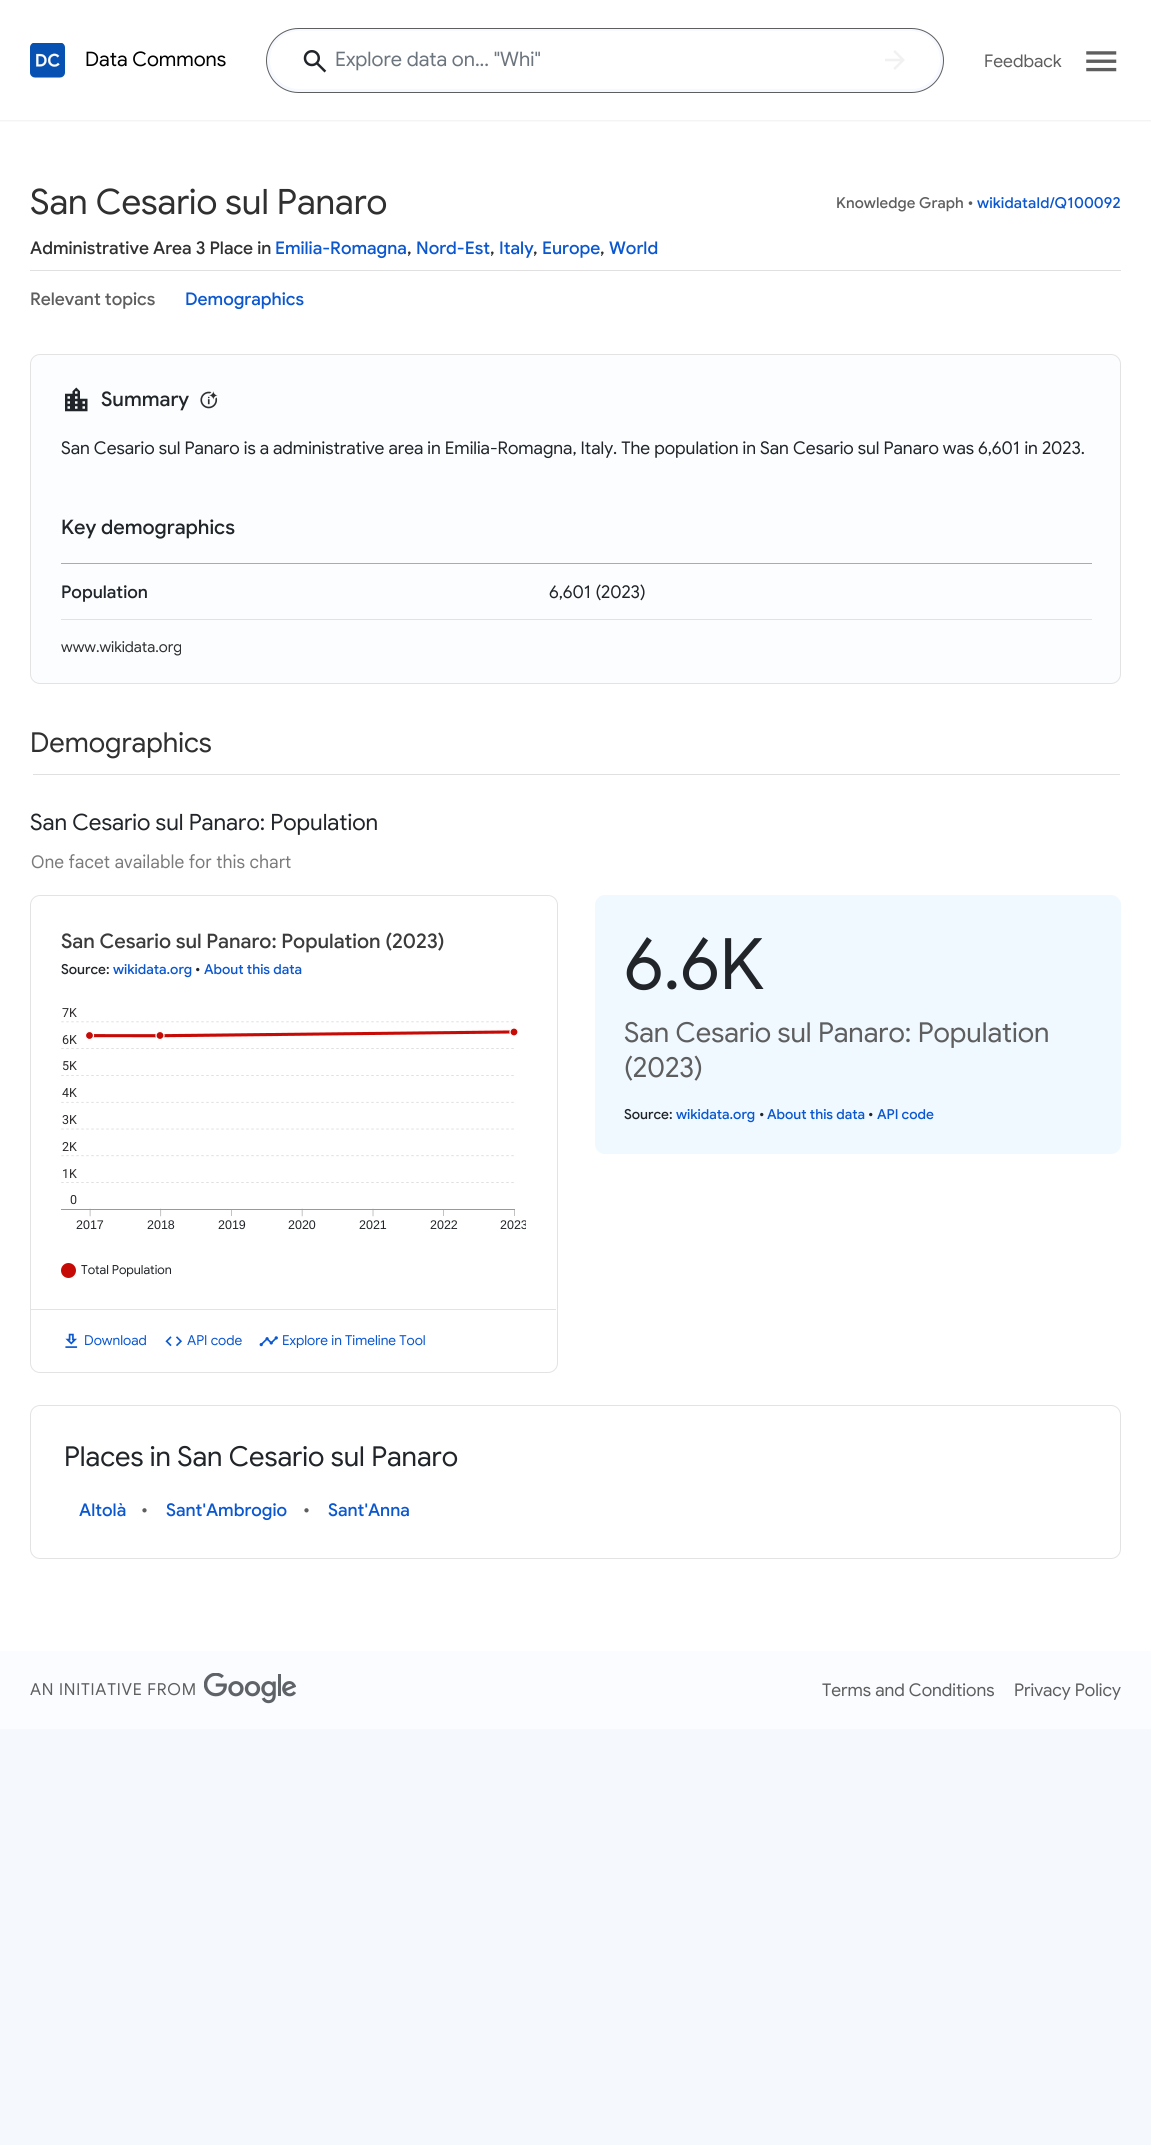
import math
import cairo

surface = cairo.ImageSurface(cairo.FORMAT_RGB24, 1151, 2145)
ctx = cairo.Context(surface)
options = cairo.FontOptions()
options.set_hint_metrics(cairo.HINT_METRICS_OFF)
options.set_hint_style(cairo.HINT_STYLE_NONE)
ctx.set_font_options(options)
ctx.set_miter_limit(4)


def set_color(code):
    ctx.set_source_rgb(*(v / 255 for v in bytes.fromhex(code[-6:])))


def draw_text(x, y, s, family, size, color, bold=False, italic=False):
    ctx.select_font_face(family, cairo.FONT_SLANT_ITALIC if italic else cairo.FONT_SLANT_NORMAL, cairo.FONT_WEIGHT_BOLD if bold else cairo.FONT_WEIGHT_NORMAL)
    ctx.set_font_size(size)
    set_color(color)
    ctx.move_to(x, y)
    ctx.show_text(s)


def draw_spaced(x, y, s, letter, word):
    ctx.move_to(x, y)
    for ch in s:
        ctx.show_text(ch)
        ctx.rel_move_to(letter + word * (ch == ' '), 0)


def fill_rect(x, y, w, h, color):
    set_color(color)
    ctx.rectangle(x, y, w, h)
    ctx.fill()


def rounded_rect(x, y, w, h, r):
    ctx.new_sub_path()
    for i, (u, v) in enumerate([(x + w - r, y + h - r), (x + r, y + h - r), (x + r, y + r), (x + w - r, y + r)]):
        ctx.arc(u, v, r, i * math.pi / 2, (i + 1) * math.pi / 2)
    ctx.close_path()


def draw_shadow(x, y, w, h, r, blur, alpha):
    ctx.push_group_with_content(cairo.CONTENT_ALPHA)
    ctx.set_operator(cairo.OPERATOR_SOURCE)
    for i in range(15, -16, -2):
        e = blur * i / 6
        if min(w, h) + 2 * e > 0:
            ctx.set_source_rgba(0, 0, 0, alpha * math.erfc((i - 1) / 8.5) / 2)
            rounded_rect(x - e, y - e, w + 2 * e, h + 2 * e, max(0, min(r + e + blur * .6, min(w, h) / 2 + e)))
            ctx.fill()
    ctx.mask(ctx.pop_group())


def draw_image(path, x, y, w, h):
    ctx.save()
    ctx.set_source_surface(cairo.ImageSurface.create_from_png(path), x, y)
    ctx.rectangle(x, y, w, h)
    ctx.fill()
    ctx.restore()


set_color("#ffffff")
ctx.paint()
ctx.save()
ctx.rectangle(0, 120, 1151, 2)
ctx.clip()
set_color("#5e5e5e")
draw_shadow(0, 1, 1151, 120, 0, 1, 0.1)
ctx.restore()
draw_image("assets/img1.png", 30, 43, 35, 35)
draw_text(85, 66, "Data Commons", "Google Sans", 20, "#000000")
set_color("#f6f9ff")
rounded_rect(266.5, 28.5, 677, 64, 32)
ctx.fill_preserve()
set_color("#5e5e5e")
ctx.set_line_width(1)
ctx.stroke()
set_color("#ffffff")
rounded_rect(270, 31, 670, 58, 29)
ctx.fill()
draw_image("assets/img2.png", 303, 50, 24, 23)
draw_text(335, 66, "Explore data on... \"Whi\"", "Google Sans", 20, "#6c757d")
draw_image("assets/img3.png", 885, 50, 20, 20)
draw_text(984, 67, "Feedback", "Google Sans", 17.5, "#5e5e5e")
draw_image("assets/img4.png", 1086, 51, 31, 21)
draw_text(30, 214, "San Cesario sul Panaro", "Google Sans", 35, "#303030")
ctx.select_font_face("Google Sans Medium")
ctx.set_font_size(15)
set_color("#5e5e5e")
draw_spaced(836, 208, "Knowledge Graph •", 0.1, 0)
set_color("#0b57d0")
draw_spaced(977, 208, "wikidataId/Q100092", 0.1, 0)
draw_text(30, 254, "Administrative Area 3 Place in", "Google Sans Medium", 17.5, "#303030")
draw_text(275, 254, "Emilia-Romagna", "Google Sans Medium", 17.5, "#0b57d0")
draw_text(407, 254, ",", "Google Sans Medium", 17.5, "#303030")
draw_text(416, 254, "Nord-Est", "Google Sans Medium", 17.5, "#0b57d0")
draw_text(490, 254, ",", "Google Sans Medium", 17.5, "#303030")
draw_text(499, 254, "Italy", "Google Sans Medium", 17.5, "#0b57d0")
draw_text(533, 254, ",", "Google Sans Medium", 17.5, "#303030")
draw_text(542, 254, "Europe", "Google Sans Medium", 17.5, "#0b57d0")
draw_text(600, 254, ",", "Google Sans Medium", 17.5, "#303030")
draw_text(609, 254, "World", "Google Sans Medium", 17.5, "#0b57d0")
fill_rect(30, 270, 1091, 1, "#e0e0e0")
draw_text(30, 305, "Relevant topics", "Google Sans Medium", 17.5, "#5e5e5e")
draw_text(185, 305, "Demographics", "Google Sans Medium", 17.5, "#0b57d0")
set_color("#fbfdff")
rounded_rect(30.5, 354.5, 1090, 329, 9.5)
ctx.fill_preserve()
set_color("#e3e3e3")
ctx.stroke()
draw_image("assets/img5.png", 65, 387, 23, 25)
draw_text(101, 406, "Summary", "Google Sans Medium", 20, "#212529")
draw_image("assets/img6.png", 200, 391, 18, 18)
draw_text(61, 454, "San Cesario sul Panaro is a administrative area in Emilia-Romagna, Italy. The population in San Cesario sul Panaro was 6,601 in 2023.", "Google Sans", 17.5, "#212529")
draw_text(61, 534, "Key demographics", "Google Sans Medium", 20, "#212529")
fill_rect(61, 563, 1031, 1, "#ababab")
draw_text(61, 598, "Population", "Google Sans Medium", 17.5, "#212529")
draw_text(549, 598, "6,601 (2023)", "Google Sans", 17.5, "#212529")
fill_rect(61, 619, 1031, 1, "#e1e3e1")
draw_text(61, 652, "www.wikidata.org", "Google Sans", 15, "#303030")
fill_rect(33, 774, 1087, 1, "#e0e0e0")
draw_text(30, 752, "Demographics", "Google Sans", 27.5, "#303030")
draw_text(30, 830, "San Cesario sul Panaro: Population", "Google Sans", 22.5, "#212529")
draw_text(31, 868, "One facet available for this chart", "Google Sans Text", 17.5, "#7a7a7a")
rounded_rect(30.5, 895.5, 527, 477, 9.5)
set_color("#e3e3e3")
ctx.stroke()
draw_text(61, 948, "San Cesario sul Panaro: Population (2023)", "Google Sans Medium", 20, "#3b3b3b")
draw_text(61, 974, "Source:", "Google Sans Medium", 13.75, "#212529")
draw_text(113, 974, "wikidata.org", "Google Sans Medium", 13.75, "#0b57d0")
draw_text(195, 974, "•", "Google Sans Medium", 13.75, "#212529")
draw_text(204, 974, "About this data", "Google Sans Medium", 13.75, "#0b57d0")
draw_text(62, 1017, "7K", "Roboto", 12.5, "#2b2929")
draw_image("assets/img7.png", 61, 1021, 457, 196)
draw_text(62, 1044, "6K", "Roboto", 12.5, "#2b2929")
draw_text(62, 1070, "5K", "Roboto", 12.5, "#2b2929")
draw_text(62, 1097, "4K", "Roboto", 12.5, "#2b2929")
draw_text(62, 1124, "3K", "Roboto", 12.5, "#2b2929")
draw_text(62, 1151, "2K", "Roboto", 12.5, "#2b2929")
draw_text(62, 1178, "1K", "Roboto", 12.5, "#2b2929")
draw_text(70, 1204, "0", "Roboto", 12.5, "#2b2929")
draw_text(76, 1229, "2017", "Liberation Sans", 12.5, "#212529")
draw_text(147, 1229, "2018", "Liberation Sans", 12.5, "#212529")
draw_text(218, 1229, "2019", "Liberation Sans", 12.5, "#212529")
draw_text(288, 1229, "2020", "Liberation Sans", 12.5, "#212529")
draw_text(359, 1229, "2021", "Liberation Sans", 12.5, "#212529")
draw_text(430, 1229, "2022", "Liberation Sans", 12.5, "#212529")
ctx.save()
ctx.rectangle(61, 996, 465, 250)
ctx.clip()
draw_text(500, 1229, "2023", "Liberation Sans", 12.5, "#212529")
ctx.restore()
set_color("#c60b07")
ctx.new_path()
ctx.arc(68.5, 1270.5, 7.5, 0, 2 * math.pi)
ctx.fill()
draw_text(81, 1274, "Total Population", "Google Sans", 12.5, "#212529")
fill_rect(31, 1309, 525, 1, "#e3e3e3")
draw_image("assets/img8.png", 65, 1333, 13, 15)
draw_text(84, 1345, "Download", "Google Sans", 13.75, "#0b57d0")
draw_image("assets/img9.png", 165, 1336, 17, 11)
draw_text(187, 1345, "API code", "Google Sans", 13.75, "#0b57d0")
draw_image("assets/img10.png", 259, 1336, 19, 11)
draw_text(282, 1345, "Explore in Timeline Tool", "Google Sans", 13.75, "#0b57d0")
set_color("#eff9ff")
rounded_rect(595, 895, 526, 259, 10)
ctx.fill()
draw_text(624, 989, "6.6K", "Google Sans", 71, "#212529")
draw_text(624, 1042, "San Cesario sul Panaro: Population", "Google Sans", 27.5, "#5e5e5e")
draw_text(624, 1077, "(2023)", "Google Sans", 27.5, "#5e5e5e")
draw_text(624, 1119, "Source:", "Google Sans Medium", 13.75, "#212529")
draw_text(676, 1119, "wikidata.org", "Google Sans Medium", 13.75, "#0b57d0")
draw_text(759, 1119, "•", "Google Sans Medium", 13.75, "#212529")
draw_text(767, 1119, "About this data", "Google Sans Medium", 13.75, "#0b57d0")
draw_text(868, 1119, "•", "Google Sans Medium", 13.75, "#212529")
draw_text(877, 1119, "API code", "Google Sans Medium", 13.75, "#0b57d0")
rounded_rect(30.5, 1405.5, 1090, 153, 9.5)
set_color("#e3e3e3")
ctx.stroke()
draw_text(64, 1466, "Places in San Cesario sul Panaro", "Google Sans", 27.5, "#212529")
draw_text(79, 1516, "Altolà", "Google Sans Medium", 17.5, "#0b57d0")
draw_text(141, 1516, "•", "Google Sans Medium", 17.5, "#5e5e5e")
draw_text(166, 1516, "Sant'Ambrogio", "Google Sans Medium", 17.5, "#0b57d0")
draw_text(303, 1516, "•", "Google Sans Medium", 17.5, "#5e5e5e")
draw_text(328, 1516, "Sant'Anna", "Google Sans Medium", 17.5, "#0b57d0")
set_color("#f5f9fe")
ctx.set_fill_rule(cairo.FILL_RULE_EVEN_ODD)
ctx.new_path()
ctx.move_to(-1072, 1651)
ctx.line_to(-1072, 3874)
ctx.line_to(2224, 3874)
ctx.line_to(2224, 1651)
ctx.close_path()
ctx.move_to(0, 1651)
ctx.line_to(0, 1729)
ctx.line_to(1151, 1729)
ctx.line_to(1151, 1651)
ctx.close_path()
ctx.fill()
fill_rect(0, 1651, 1151, 78, "#fafcff")
ctx.select_font_face("Google Sans")
ctx.set_font_size(16.5)
set_color("#5e5e5e")
draw_spaced(30, 1695, "AN INITIATIVE FROM", 0.8, 0)
draw_image("assets/img11.png", 204, 1673, 92, 31)
draw_text(822, 1696, "Terms and Conditions", "Google Sans", 17.5, "#5e5e5e")
draw_text(1014, 1696, "Privacy Policy", "Google Sans", 17.5, "#5e5e5e")
surface.write_to_png("output.png")
